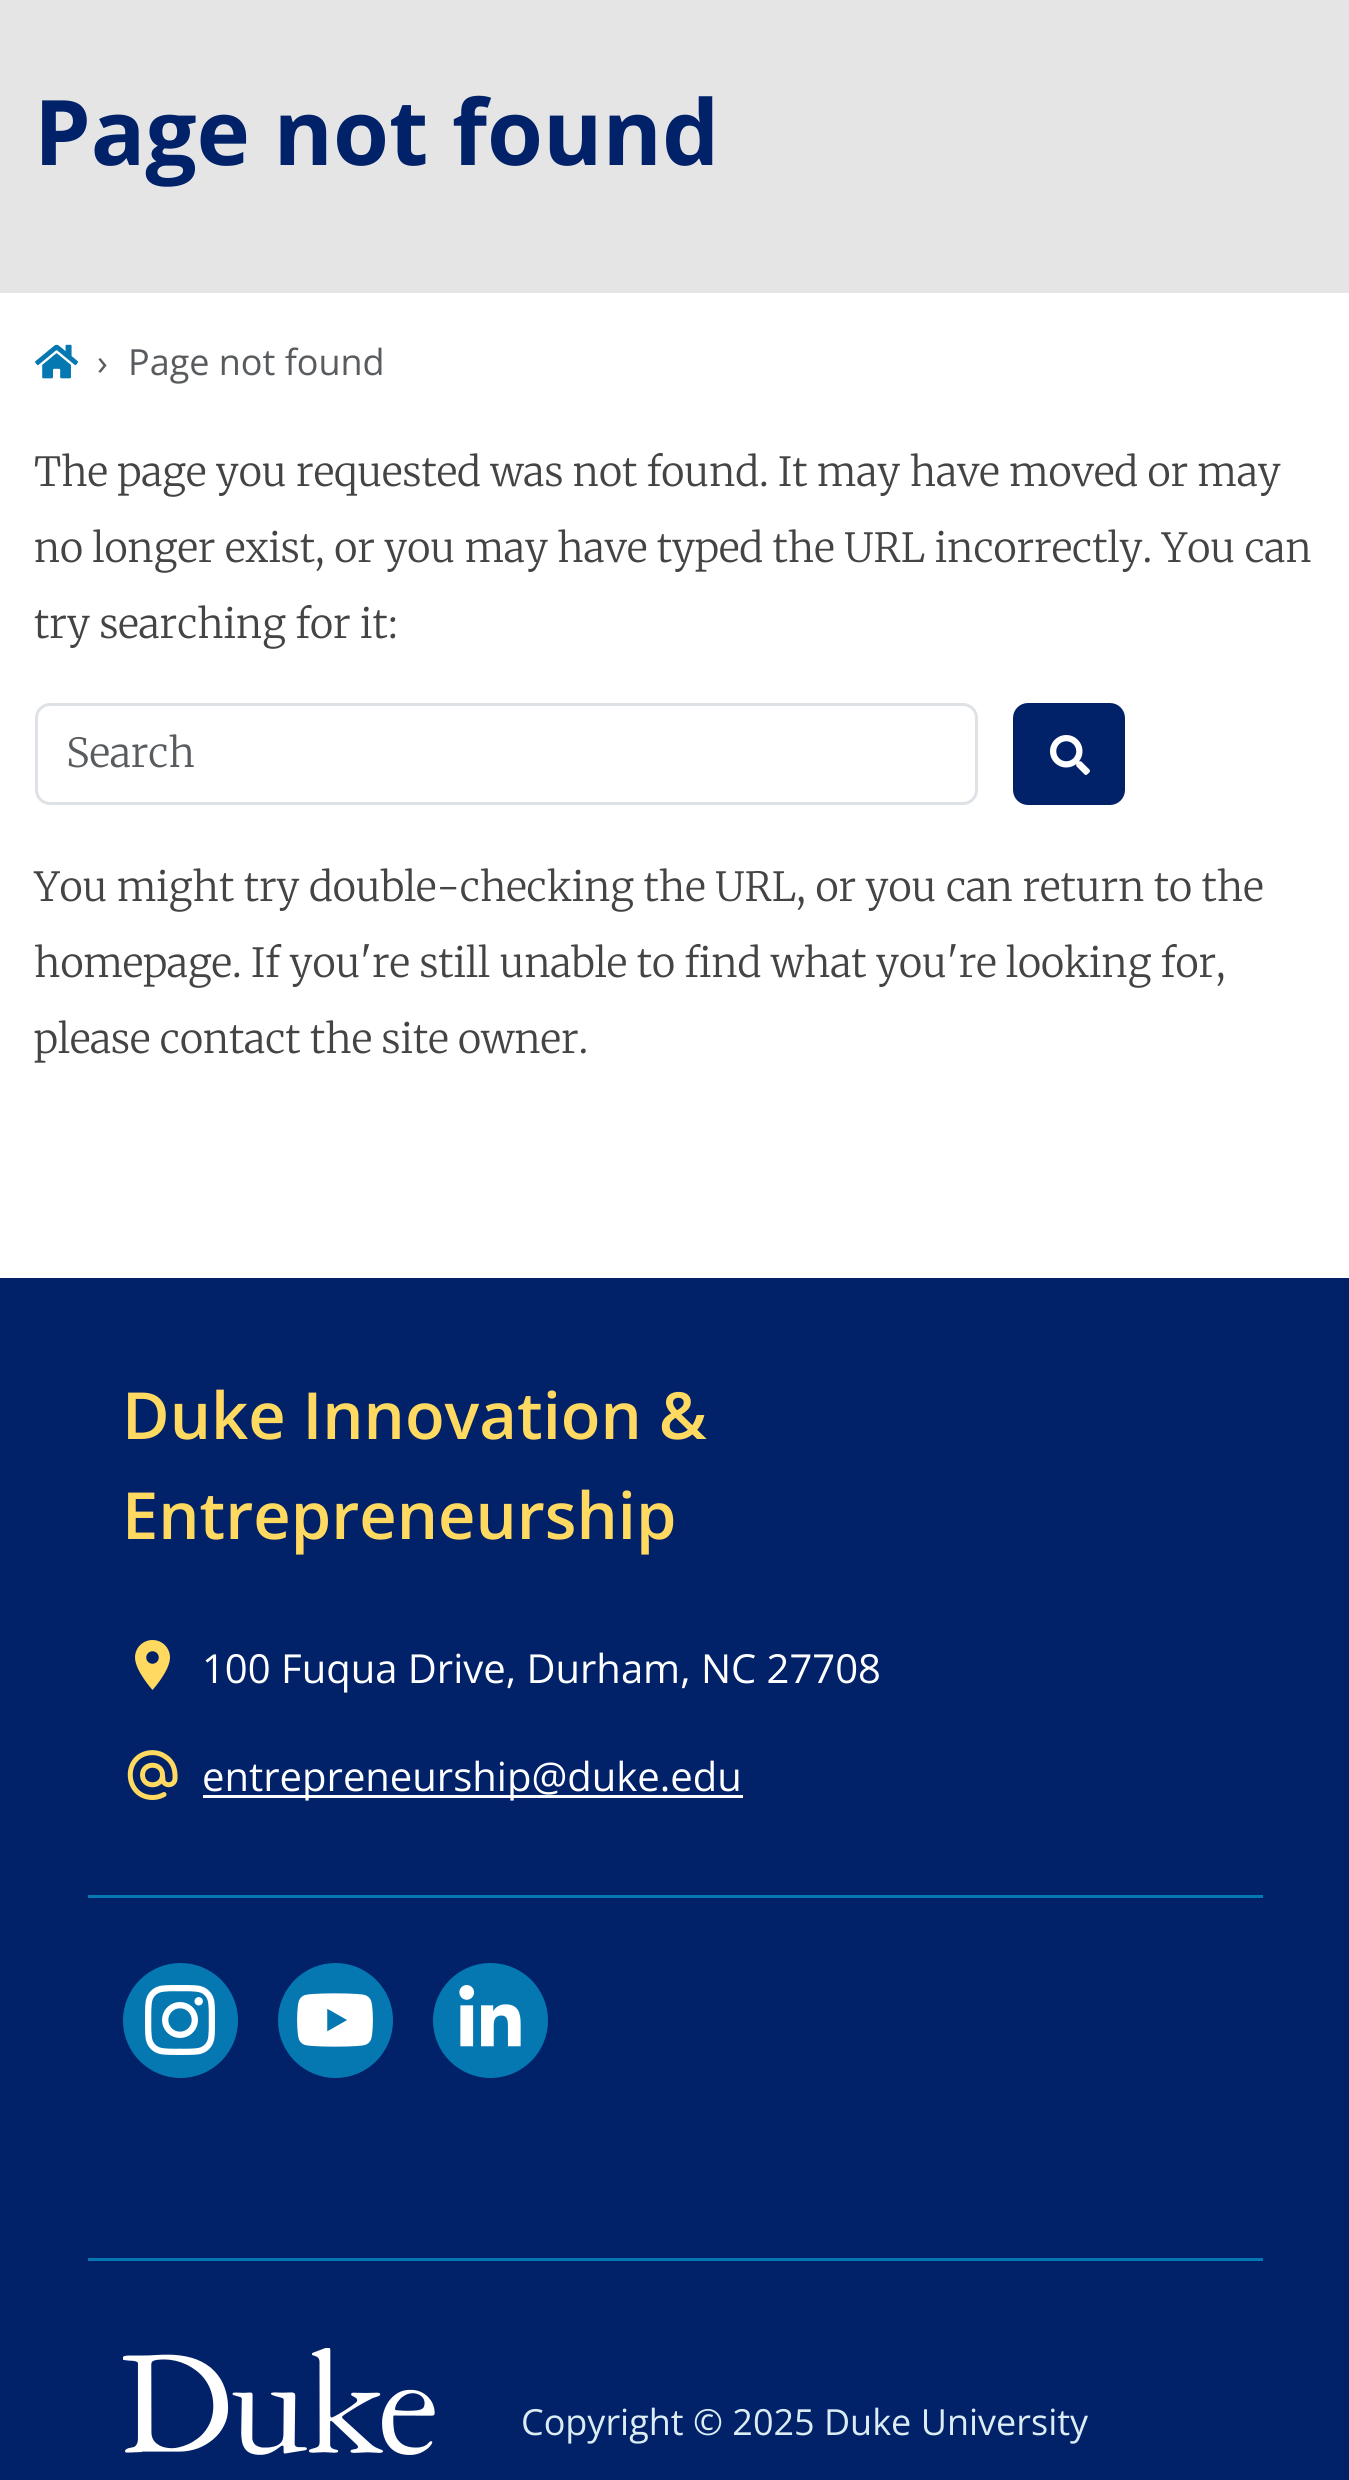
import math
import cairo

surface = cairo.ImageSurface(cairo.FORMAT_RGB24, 1349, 2480)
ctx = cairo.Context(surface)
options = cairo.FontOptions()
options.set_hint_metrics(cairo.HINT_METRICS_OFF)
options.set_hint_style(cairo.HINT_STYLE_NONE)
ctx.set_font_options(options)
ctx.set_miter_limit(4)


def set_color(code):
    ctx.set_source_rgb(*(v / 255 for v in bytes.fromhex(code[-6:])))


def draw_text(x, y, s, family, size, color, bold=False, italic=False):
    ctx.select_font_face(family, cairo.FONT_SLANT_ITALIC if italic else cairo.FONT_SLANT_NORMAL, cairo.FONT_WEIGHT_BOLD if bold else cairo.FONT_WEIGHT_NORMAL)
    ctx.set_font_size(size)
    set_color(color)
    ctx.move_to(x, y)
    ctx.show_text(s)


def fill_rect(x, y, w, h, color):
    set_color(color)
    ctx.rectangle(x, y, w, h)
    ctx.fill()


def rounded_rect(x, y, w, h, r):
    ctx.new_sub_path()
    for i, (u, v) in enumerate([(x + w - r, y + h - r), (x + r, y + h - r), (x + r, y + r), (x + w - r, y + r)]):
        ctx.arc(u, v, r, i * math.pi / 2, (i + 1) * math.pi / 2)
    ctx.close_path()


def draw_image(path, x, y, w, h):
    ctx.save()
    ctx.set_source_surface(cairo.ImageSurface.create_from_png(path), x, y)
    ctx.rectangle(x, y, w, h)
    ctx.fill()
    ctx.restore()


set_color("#ffffff")
ctx.paint()
fill_rect(0, 0, 1349, 293, "#e5e5e5")
draw_text(34, 165, "Page not found", "Open Sans", 90.5, "#012169", bold=True)
draw_image("assets/img1.png", 35, 344, 43, 35)
draw_text(97, 375, "›", "Open Sans", 36, "#595c5f")
draw_text(128, 375, "Page not found", "Open Sans", 36, "#595c5f")
draw_text(34, 486, "The page you requested was not found. It may have moved or may", "Merriweather Light", 40, "#464343")
draw_text(34, 562, "no longer exist, or you may have typed the URL incorrectly. You can", "Merriweather Light", 40, "#464343")
draw_text(34, 638, "try searching for it:", "Merriweather Light", 40, "#464343")
rounded_rect(36.5, 704.5, 940, 99, 13.5)
set_color("#dee2e6")
ctx.set_line_width(3)
ctx.stroke()
draw_text(66, 767, "Search", "Merriweather Light", 40, "#595c5f")
set_color("#012169")
rounded_rect(1014.5, 704.5, 109, 99, 13.5)
ctx.fill_preserve()
ctx.stroke()
draw_image("assets/img2.png", 1050, 735, 40, 40)
draw_text(34, 901, "You might try double-checking the URL, or you can return to the", "Merriweather Light", 40, "#464343")
draw_text(34, 977, "homepage. If you're still unable to find what you're looking for,", "Merriweather Light", 40, "#464343")
draw_text(34, 1053, "please contact the site owner.", "Merriweather Light", 40, "#464343")
fill_rect(0, 1278, 1349, 1202, "#012169")
draw_text(122, 1439, "Duke Innovation &", "Open Sans SemiBold", 65, "#ffd960")
draw_text(122, 1539, "Entrepreneurship", "Open Sans SemiBold", 65, "#ffd960")
fill_rect(88, 1895, 1175, 3, "#0577b1")
draw_image("assets/img3.png", 135, 1640, 35, 50)
draw_text(202, 1683, "100 Fuqua Drive, Durham, NC 27708", "Open Sans", 40, "#ffffff")
ctx.new_path()
ctx.move_to(162.5, 1775)
ctx.curve_to(162.5, 1762, 142.5, 1762, 142.5, 1775)
ctx.curve_to(142.5, 1788, 162.5, 1788, 162.5, 1775)
ctx.close_path()
ctx.move_to(162.5, 1775)
ctx.line_to(163, 1781)
ctx.curve_to(165, 1786, 172.5, 1786, 174.5, 1781)
ctx.curve_to(175.5, 1778.5, 175, 1773, 174.5, 1770.5)
ctx.curve_to(173.5, 1764.5, 170, 1759.5, 165, 1756.5)
ctx.curve_to(160, 1753, 154, 1752, 148, 1753)
ctx.curve_to(122, 1758, 125.5, 1797.5, 152.5, 1797.5)
ctx.move_to(164, 1794.5)
ctx.curve_to(160.5, 1796.5, 156.5, 1797.5, 152.5, 1797.5)
set_color("#ffd960")
ctx.set_line_width(5)
ctx.set_line_cap(cairo.LINE_CAP_ROUND)
ctx.set_line_join(cairo.LINE_JOIN_ROUND)
ctx.stroke()
fill_rect(203, 1795, 540, 3, "#ffffff")
draw_text(202, 1791, "entrepreneurship@duke.edu", "Open Sans", 40, "#ffffff")
set_color("#0577b1")
ctx.new_path()
ctx.arc(180.5, 2020.5, 57.5, 0, 2 * math.pi)
ctx.fill()
draw_image("assets/img4.png", 145, 1985, 70, 70)
ctx.arc(335.5, 2020.5, 57.5, 0, 2 * math.pi)
ctx.fill()
draw_image("assets/img5.png", 297, 1993, 76, 54)
ctx.arc(490.5, 2020.5, 57.5, 0, 2 * math.pi)
ctx.fill()
draw_image("assets/img6.png", 459, 1985, 62, 62)
fill_rect(88, 2258, 1175, 3, "#0577b1")
draw_image("assets/img7.png", 123, 2348, 312, 107)
draw_text(521, 2435, "Copyright © 2025 Duke University", "Open Sans", 36, "#dbedf2")
surface.write_to_png("output.png")
